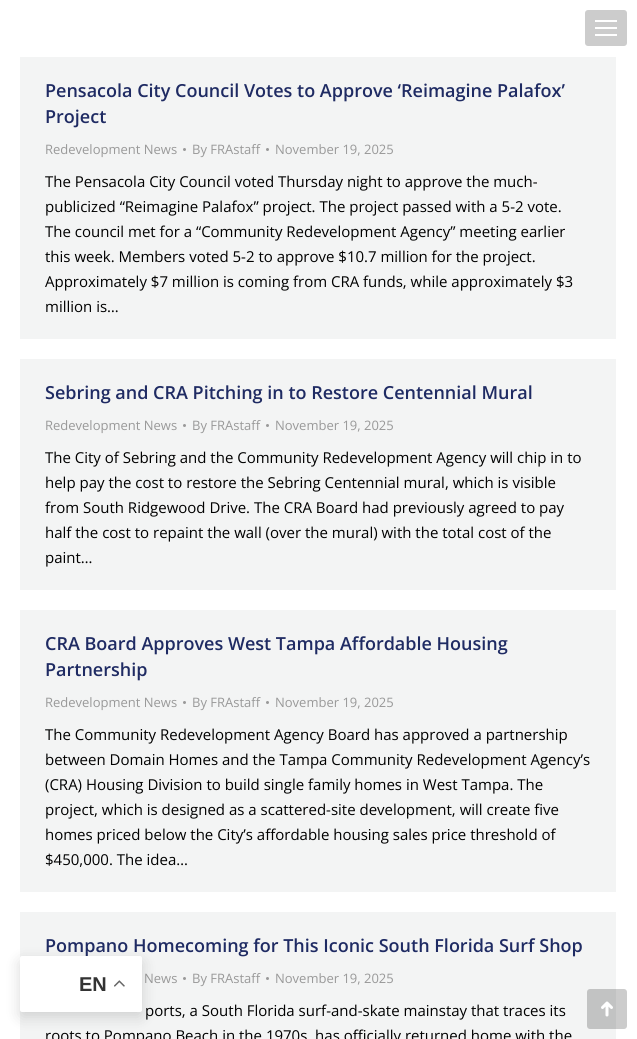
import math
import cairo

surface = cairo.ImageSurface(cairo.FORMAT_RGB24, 637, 1039)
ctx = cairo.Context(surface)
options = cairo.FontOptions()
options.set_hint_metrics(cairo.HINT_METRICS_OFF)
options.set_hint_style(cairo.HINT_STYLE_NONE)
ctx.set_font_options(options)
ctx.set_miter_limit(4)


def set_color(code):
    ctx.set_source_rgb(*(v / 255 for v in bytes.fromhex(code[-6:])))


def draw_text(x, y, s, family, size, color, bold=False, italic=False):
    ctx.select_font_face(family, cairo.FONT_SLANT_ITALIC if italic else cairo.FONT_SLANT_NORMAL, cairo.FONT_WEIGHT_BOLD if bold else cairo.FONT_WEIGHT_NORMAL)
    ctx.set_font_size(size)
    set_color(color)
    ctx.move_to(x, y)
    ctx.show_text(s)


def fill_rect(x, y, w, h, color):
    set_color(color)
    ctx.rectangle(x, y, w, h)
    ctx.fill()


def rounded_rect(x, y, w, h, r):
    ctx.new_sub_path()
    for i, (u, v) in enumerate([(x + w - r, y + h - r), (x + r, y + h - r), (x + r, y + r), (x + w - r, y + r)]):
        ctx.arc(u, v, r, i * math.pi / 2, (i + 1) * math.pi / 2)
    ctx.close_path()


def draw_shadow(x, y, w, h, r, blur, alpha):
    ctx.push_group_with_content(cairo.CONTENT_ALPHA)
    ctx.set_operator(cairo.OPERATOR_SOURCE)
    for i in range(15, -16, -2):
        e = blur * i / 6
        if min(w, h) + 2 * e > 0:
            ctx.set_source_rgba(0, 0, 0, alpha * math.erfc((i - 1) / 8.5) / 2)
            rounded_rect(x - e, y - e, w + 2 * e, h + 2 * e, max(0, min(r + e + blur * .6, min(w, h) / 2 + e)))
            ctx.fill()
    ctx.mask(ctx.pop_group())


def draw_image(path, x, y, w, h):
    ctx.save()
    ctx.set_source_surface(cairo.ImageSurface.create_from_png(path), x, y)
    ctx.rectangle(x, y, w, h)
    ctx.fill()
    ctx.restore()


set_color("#ffffff")
ctx.paint()
set_color("#cccccc")
rounded_rect(585, 10, 42, 36, 3)
ctx.fill()
fill_rect(595, 20, 22, 2, "#ffffff")
fill_rect(595, 27, 22, 2, "#ffffff")
fill_rect(595, 34, 22, 2, "#ffffff")
fill_rect(20, 57, 596, 282, "#f3f4f4")
draw_text(45, 97, "Pensacola City Council Votes to Approve ‘Reimagine Palafox’", "Open Sans SemiBold", 18, "#1f2b63")
draw_text(45, 123, "Project", "Open Sans SemiBold", 18, "#1f2b63")
draw_text(45, 154, "Redevelopment News", "Open Sans", 13, "#999999")
ctx.new_path()
ctx.arc(184.5, 149.5, 1.5, 0, 2 * math.pi)
ctx.fill()
draw_text(192, 154, "By FRAstaff", "Open Sans", 13, "#999999")
ctx.new_path()
ctx.arc(267.5, 149.5, 1.5, 0, 2 * math.pi)
ctx.fill()
draw_text(275, 154, "November 19, 2025", "Open Sans", 13, "#999999")
draw_text(45, 187, "The Pensacola City Council voted Thursday night to approve the much-", "Open Sans", 15, "#000000")
draw_text(45, 212, "publicized “Reimagine Palafox” project. The project passed with a 5-2 vote.", "Open Sans", 15, "#000000")
draw_text(45, 237, "The council met for a “Community Redevelopment Agency” meeting earlier", "Open Sans", 15, "#000000")
draw_text(45, 262, "this week. Members voted 5-2 to approve $10.7 million for the project.", "Open Sans", 15, "#000000")
draw_text(45, 287, "Approximately $7 million is coming from CRA funds, while approximately $3", "Open Sans", 15, "#000000")
draw_text(45, 312, "million is…", "Open Sans", 15, "#000000")
fill_rect(20, 359, 596, 231, "#f3f4f4")
draw_text(45, 399, "Sebring and CRA Pitching in to Restore Centennial Mural", "Open Sans SemiBold", 18, "#1f2b63")
draw_text(45, 430, "Redevelopment News", "Open Sans", 13, "#999999")
ctx.new_path()
ctx.arc(184.5, 425.5, 1.5, 0, 2 * math.pi)
ctx.fill()
draw_text(192, 430, "By FRAstaff", "Open Sans", 13, "#999999")
ctx.new_path()
ctx.arc(267.5, 425.5, 1.5, 0, 2 * math.pi)
ctx.fill()
draw_text(275, 430, "November 19, 2025", "Open Sans", 13, "#999999")
draw_text(45, 463, "The City of Sebring and the Community Redevelopment Agency will chip in to", "Open Sans", 15, "#000000")
draw_text(45, 488, "help pay the cost to restore the Sebring Centennial mural, which is visible", "Open Sans", 15, "#000000")
draw_text(45, 513, "from South Ridgewood Drive. The CRA Board had previously agreed to pay", "Open Sans", 15, "#000000")
draw_text(45, 538, "half the cost to repaint the wall (over the mural) with the total cost of the", "Open Sans", 15, "#000000")
draw_text(45, 563, "paint…", "Open Sans", 15, "#000000")
fill_rect(20, 610, 596, 282, "#f3f4f4")
draw_text(45, 650, "CRA Board Approves West Tampa Affordable Housing", "Open Sans SemiBold", 18, "#1f2b63")
draw_text(45, 676, "Partnership", "Open Sans SemiBold", 18, "#1f2b63")
draw_text(45, 707, "Redevelopment News", "Open Sans", 13, "#999999")
ctx.new_path()
ctx.arc(184.5, 702.5, 1.5, 0, 2 * math.pi)
ctx.fill()
draw_text(192, 707, "By FRAstaff", "Open Sans", 13, "#999999")
ctx.new_path()
ctx.arc(267.5, 702.5, 1.5, 0, 2 * math.pi)
ctx.fill()
draw_text(275, 707, "November 19, 2025", "Open Sans", 13, "#999999")
draw_text(45, 740, "The Community Redevelopment Agency Board has approved a partnership", "Open Sans", 15, "#000000")
draw_text(45, 765, "between Domain Homes and the Tampa Community Redevelopment Agency’s", "Open Sans", 15, "#000000")
draw_text(45, 790, "(CRA) Housing Division to build single family homes in West Tampa. The", "Open Sans", 15, "#000000")
draw_text(45, 815, "project, which is designed as a scattered-site development, will create five", "Open Sans", 15, "#000000")
draw_text(45, 840, "homes priced below the City’s affordable housing sales price threshold of", "Open Sans", 15, "#000000")
draw_text(45, 865, "$450,000. The idea…", "Open Sans", 15, "#000000")
fill_rect(20, 912, 596, 127, "#f3f4f4")
draw_text(45, 952, "Pompano Homecoming for This Iconic South Florida Surf Shop", "Open Sans SemiBold", 18, "#1f2b63")
draw_text(144, 983, "News", "Open Sans", 13, "#999999")
ctx.new_path()
ctx.arc(184.5, 978.5, 1.5, 0, 2 * math.pi)
ctx.fill()
draw_text(192, 983, "By FRAstaff", "Open Sans", 13, "#999999")
ctx.new_path()
ctx.arc(267.5, 978.5, 1.5, 0, 2 * math.pi)
ctx.fill()
draw_text(275, 983, "November 19, 2025", "Open Sans", 13, "#999999")
draw_text(145, 1016, "ports, a South Florida surf-and-skate mainstay that traces its", "Open Sans", 15, "#000000")
draw_text(45, 1041, "roots to Pompano Beach in the 1970s, has officially returned home with the", "Open Sans", 15, "#000000")
ctx.set_source_rgba(0, 0, 0, 0.2)
rounded_rect(587, 989, 40, 40, 3)
ctx.fill()
draw_image("assets/img1.png", 601, 1001, 12, 16)
set_color("#000000")
draw_shadow(20, 961, 122, 56, 2, 7.5, 0.15)
set_color("#ffffff")
rounded_rect(20, 956, 122, 56, 2)
ctx.fill()
draw_text(79, 991, "EN", "Liberation Sans", 20, "#333333", bold=True)
draw_image("assets/img2.png", 114, 980, 11, 7)
surface.write_to_png("output.png")
